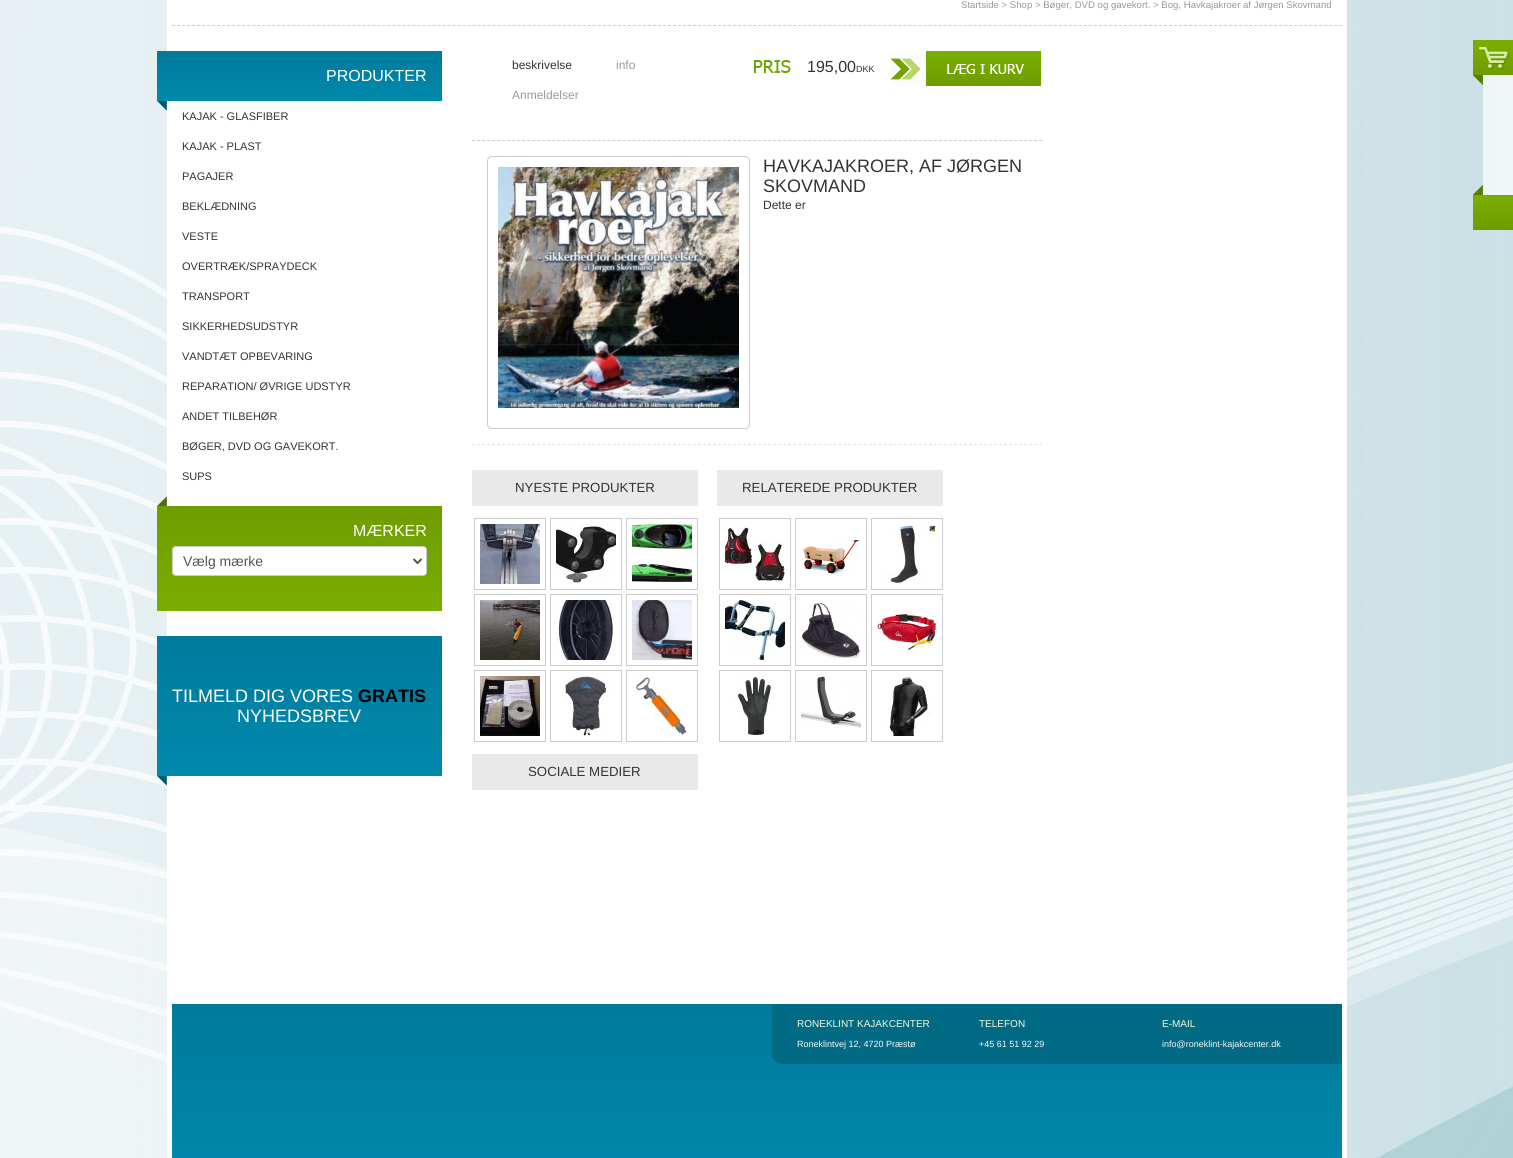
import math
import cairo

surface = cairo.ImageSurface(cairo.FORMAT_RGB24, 1513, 1158)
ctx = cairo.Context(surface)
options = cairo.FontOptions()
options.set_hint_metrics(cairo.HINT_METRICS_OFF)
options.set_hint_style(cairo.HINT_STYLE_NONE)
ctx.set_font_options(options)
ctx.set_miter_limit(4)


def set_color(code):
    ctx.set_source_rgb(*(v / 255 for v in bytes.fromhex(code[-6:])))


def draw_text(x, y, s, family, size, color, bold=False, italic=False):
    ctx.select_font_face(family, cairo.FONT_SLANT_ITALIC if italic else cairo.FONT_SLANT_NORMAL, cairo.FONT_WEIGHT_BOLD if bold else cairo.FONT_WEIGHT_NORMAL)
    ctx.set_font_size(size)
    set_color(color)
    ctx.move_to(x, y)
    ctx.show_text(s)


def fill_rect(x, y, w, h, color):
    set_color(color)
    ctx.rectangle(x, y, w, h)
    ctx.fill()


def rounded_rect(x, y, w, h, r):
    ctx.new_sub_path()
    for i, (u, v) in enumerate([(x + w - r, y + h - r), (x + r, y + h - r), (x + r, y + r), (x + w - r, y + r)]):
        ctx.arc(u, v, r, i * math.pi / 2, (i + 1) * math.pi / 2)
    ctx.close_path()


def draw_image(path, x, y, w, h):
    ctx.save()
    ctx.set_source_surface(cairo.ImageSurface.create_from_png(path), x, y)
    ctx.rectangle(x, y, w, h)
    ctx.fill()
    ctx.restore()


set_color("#ffffff")
ctx.paint()
draw_image("assets/img1.png", 0, 0, 1513, 1158)
fill_rect(167, 0, 1180, 1158, "#ffffff")
ctx.new_path()
ctx.move_to(172, 25.5)
ctx.line_to(1342, 25.5)
set_color("#cccccc")
ctx.set_line_width(1)
ctx.set_dash([3, 2.01])
ctx.stroke()
draw_text(961, 8, "Startside > Shop > Bøger, DVD og gavekort. > Bog, Havkajakroer af Jørgen Skovmand", "Liberation Sans", 9.6, "#999999")
gradient = cairo.LinearGradient(300, 51, 300, 101)
gradient.add_color_stop_rgba(0, 0, 0.482, 0.616, 1)
gradient.add_color_stop_rgba(1, 0, 0.537, 0.678, 1)
ctx.set_source(gradient)
ctx.rectangle(157, 51, 285, 50)
ctx.fill()
draw_text(326, 81, "PRODUKTER", "Liberation Sans", 16, "#ffffff")
draw_image("assets/img2.png", 157, 101, 10, 10)
draw_text(182, 120, "KAJAK - GLASFIBER", "Liberation Sans", 11, "#333333")
draw_text(182, 150, "KAJAK - PLAST", "Liberation Sans", 11, "#333333")
draw_text(182, 180, "PAGAJER", "Liberation Sans", 11, "#333333")
draw_text(182, 210, "BEKLÆDNING", "Liberation Sans", 11, "#333333")
draw_text(182, 240, "VESTE", "Liberation Sans", 11, "#333333")
draw_text(182, 270, "OVERTRÆK/SPRAYDECK", "Liberation Sans", 11, "#333333")
draw_text(182, 300, "TRANSPORT", "Liberation Sans", 11, "#333333")
draw_text(182, 330, "SIKKERHEDSUDSTYR", "Liberation Sans", 11, "#333333")
draw_text(182, 360, "VANDTÆT OPBEVARING", "Liberation Sans", 11, "#333333")
draw_text(182, 390, "REPARATION/ ØVRIGE UDSTYR", "Liberation Sans", 11, "#333333")
draw_text(182, 420, "ANDET TILBEHØR", "Liberation Sans", 11, "#333333")
draw_text(182, 450, "BØGER, DVD OG GAVEKORT.", "Liberation Sans", 11, "#333333")
draw_text(182, 480, "SUPS", "Liberation Sans", 11, "#333333")
gradient = cairo.LinearGradient(300, 506, 300, 611)
gradient.add_color_stop_rgba(0, 0.435, 0.616, 0, 1)
gradient.add_color_stop_rgba(1, 0.478, 0.678, 0, 1)
ctx.set_source(gradient)
ctx.rectangle(157, 506, 285, 105)
ctx.fill()
draw_image("assets/img3.png", 157, 496, 10, 10)
draw_text(353, 536, "MÆRKER", "Liberation Sans", 16, "#ffffff")
rounded_rect(172.5, 546.5, 254, 29, 3.5)
ctx.fill_preserve()
set_color("#cccccc")
ctx.set_dash([])
ctx.stroke()
ctx.new_path()
ctx.move_to(413.5, 559)
ctx.line_to(417.5, 563)
ctx.line_to(421.5, 559)
set_color("#555555")
ctx.set_line_width(2)
ctx.stroke()
draw_text(183, 566, "Vælg mærke", "Liberation Sans", 14, "#555555")
gradient = cairo.LinearGradient(300, 636, 300, 776)
gradient.add_color_stop_rgba(0, 0, 0.482, 0.616, 1)
gradient.add_color_stop_rgba(1, 0, 0.537, 0.678, 1)
ctx.set_source(gradient)
ctx.rectangle(157, 636, 285, 140)
ctx.fill()
draw_text(172, 702, "TILMELD DIG VORES", "Liberation Sans", 18, "#ffffff")
draw_text(358, 702, "GRATIS", "Liberation Sans", 18, "#000000", bold=True)
draw_text(237, 722, "NYHEDSBREV", "Liberation Sans", 18, "#ffffff")
draw_image("assets/img4.png", 157, 776, 10, 10)
draw_text(512, 69, "beskrivelse", "Liberation Sans", 12, "#333333")
draw_text(616, 69, "info", "Liberation Sans", 12, "#999999")
draw_text(512, 99, "Anmeldelser", "Liberation Sans", 12, "#999999")
draw_image("assets/img5.png", 753, 60, 38, 13)
draw_text(807, 72, "195,00", "Liberation Sans", 16, "#333333")
draw_text(856, 72, "DKK", "Liberation Sans", 9, "#333333")
draw_image("assets/img6.png", 890, 51, 151, 35)
ctx.new_path()
ctx.move_to(472, 140.5)
ctx.line_to(1042, 140.5)
set_color("#cccccc")
ctx.set_line_width(1)
ctx.set_dash([3, 2.02])
ctx.stroke()
rounded_rect(487.5, 156.5, 262, 272, 4.5)
ctx.set_dash([])
ctx.stroke()
draw_image("assets/img7.png", 498, 167, 241, 241)
draw_text(763, 172, "HAVKAJAKROER, AF JØRGEN", "Liberation Sans", 18, "#333333")
draw_text(763, 192, "SKOVMAND", "Liberation Sans", 18, "#333333")
draw_text(763, 209, "Dette er", "Liberation Sans", 12, "#333333")
ctx.new_path()
ctx.move_to(472, 444.5)
ctx.line_to(1042, 444.5)
set_color("#e4e4e4")
ctx.set_dash([3, 2.02])
ctx.stroke()
fill_rect(472, 470, 226, 36, "#e9e9e9")
draw_text(515, 492, "NYESTE PRODUKTER", "Liberation Sans", 13.25, "#333333")
ctx.rectangle(474.5, 518.5, 71, 71)
set_color("#cccccc")
ctx.set_dash([])
ctx.stroke()
draw_image("assets/img8.png", 480, 524, 60, 60)
ctx.rectangle(550.5, 518.5, 71, 71)
ctx.stroke()
draw_image("assets/img9.png", 556, 524, 60, 60)
ctx.rectangle(626.5, 518.5, 71, 71)
ctx.stroke()
draw_image("assets/img10.png", 632, 524, 60, 60)
ctx.rectangle(474.5, 594.5, 71, 71)
ctx.stroke()
draw_image("assets/img11.png", 480, 600, 60, 60)
ctx.rectangle(550.5, 594.5, 71, 71)
ctx.stroke()
draw_image("assets/img12.png", 556, 600, 58, 60)
ctx.rectangle(626.5, 594.5, 71, 71)
ctx.stroke()
draw_image("assets/img13.png", 632, 600, 60, 60)
ctx.rectangle(474.5, 670.5, 71, 71)
ctx.stroke()
draw_image("assets/img14.png", 480, 676, 60, 60)
ctx.rectangle(550.5, 670.5, 71, 71)
ctx.stroke()
draw_image("assets/img15.png", 564, 676, 48, 60)
ctx.rectangle(626.5, 670.5, 71, 71)
ctx.stroke()
draw_image("assets/img16.png", 633, 676, 55, 60)
fill_rect(717, 470, 226, 36, "#e9e9e9")
draw_text(742, 492, "RELATEREDE PRODUKTER", "Liberation Sans", 13.25, "#333333")
ctx.rectangle(719.5, 518.5, 71, 71)
set_color("#cccccc")
ctx.stroke()
draw_image("assets/img17.png", 725, 524, 60, 60)
ctx.rectangle(795.5, 518.5, 71, 71)
ctx.stroke()
draw_image("assets/img18.png", 803, 540, 56, 35)
ctx.rectangle(871.5, 518.5, 71, 71)
ctx.stroke()
draw_image("assets/img19.png", 885, 524, 52, 60)
ctx.rectangle(719.5, 594.5, 71, 71)
ctx.stroke()
draw_image("assets/img20.png", 725, 600, 60, 60)
ctx.rectangle(795.5, 594.5, 71, 71)
ctx.stroke()
draw_image("assets/img21.png", 801, 600, 60, 59)
ctx.rectangle(871.5, 594.5, 71, 71)
ctx.stroke()
draw_image("assets/img22.png", 877, 608, 60, 48)
ctx.rectangle(719.5, 670.5, 71, 71)
ctx.stroke()
draw_image("assets/img23.png", 734, 676, 38, 60)
ctx.rectangle(795.5, 670.5, 71, 71)
ctx.stroke()
draw_image("assets/img24.png", 801, 676, 60, 54)
ctx.rectangle(871.5, 670.5, 71, 71)
ctx.stroke()
draw_image("assets/img25.png", 886, 676, 47, 60)
fill_rect(472, 754, 226, 36, "#e9e9e9")
draw_text(528, 776, "SOCIALE MEDIER", "Liberation Sans", 13.25, "#333333")
draw_image("assets/img26.png", 172, 1004, 1170, 154)
set_color("#016a85")
ctx.new_path()
ctx.move_to(772, 1004)
ctx.line_to(1342, 1004)
ctx.line_to(1342, 1064)
ctx.line_to(782, 1064)
ctx.curve_to(776.5, 1064, 772, 1059.5, 772, 1054)
ctx.close_path()
ctx.fill()
draw_text(797, 1027, "RONEKLINT KAJAKCENTER", "Liberation Sans", 10, "#faf8d5")
draw_text(797, 1047, "Roneklintvej 12, 4720 Præstø", "Liberation Sans", 9, "#f8f8f8")
draw_text(979, 1027, "TELEFON", "Liberation Sans", 10, "#faf8d5")
draw_text(979, 1047, "+45 61 51 92 29", "Liberation Sans", 9, "#f8f8f8")
draw_text(1162, 1027, "E-MAIL", "Liberation Sans", 10, "#faf8d5")
draw_text(1162, 1047, "info@roneklint-kajakcenter.dk", "Liberation Sans", 9, "#f8f8f8")
draw_image("assets/img27.png", 1473, 40, 40, 45)
draw_image("assets/img28.png", 1479, 47, 30, 23)
gradient = cairo.LinearGradient(1483, 135, 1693, 135)
gradient.add_color_stop_rgba(0, 0.941, 0.965, 0.973, 1)
gradient.add_color_stop_rgba(1, 0.98, 0.988, 0.992, 1)
ctx.set_source(gradient)
ctx.rectangle(1483, 75, 30, 120)
ctx.fill()
draw_image("assets/img29.png", 1473, 185, 40, 45)
surface.write_to_png("output.png")
